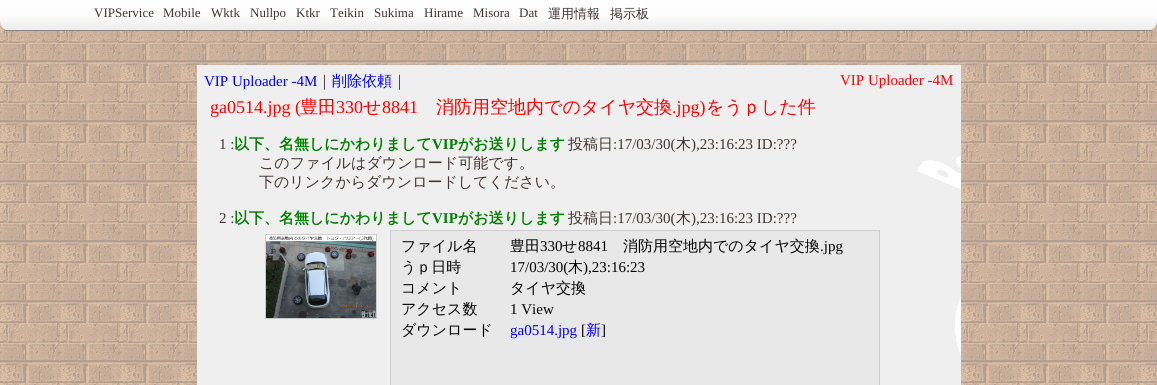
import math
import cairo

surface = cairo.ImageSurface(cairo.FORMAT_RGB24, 1157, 385)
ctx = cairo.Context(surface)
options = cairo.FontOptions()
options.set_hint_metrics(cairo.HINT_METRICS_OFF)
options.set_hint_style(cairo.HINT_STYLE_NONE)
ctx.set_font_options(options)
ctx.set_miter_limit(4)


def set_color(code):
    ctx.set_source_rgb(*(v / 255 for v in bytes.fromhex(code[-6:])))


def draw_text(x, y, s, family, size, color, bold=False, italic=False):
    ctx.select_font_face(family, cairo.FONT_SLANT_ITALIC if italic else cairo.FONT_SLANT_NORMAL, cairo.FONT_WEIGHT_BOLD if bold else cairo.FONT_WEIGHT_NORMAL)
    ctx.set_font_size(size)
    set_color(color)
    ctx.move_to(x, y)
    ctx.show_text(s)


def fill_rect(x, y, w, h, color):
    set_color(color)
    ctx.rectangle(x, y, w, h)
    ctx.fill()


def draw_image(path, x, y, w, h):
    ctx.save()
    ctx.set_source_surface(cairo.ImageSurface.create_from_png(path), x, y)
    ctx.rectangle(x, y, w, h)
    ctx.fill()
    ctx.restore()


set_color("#ffffff")
ctx.paint()
draw_image("assets/img1.png", 0, 21, 1157, 364)
ctx.save()
ctx.new_path()
ctx.move_to(0, 0)
ctx.line_to(1157, 0)
ctx.line_to(1157, 21)
ctx.curve_to(1157, 26.5, 1152.5, 31, 1147, 31)
ctx.line_to(10, 31)
ctx.curve_to(4.5, 31, 0, 26.5, 0, 21)
ctx.close_path()
ctx.clip()
gradient = cairo.LinearGradient(0, 0, 0, 30)
gradient.add_color_stop_rgba(0, 1, 1, 1, 1)
gradient.add_color_stop_rgba(0.53, 0.988, 0.988, 0.988, 1)
gradient.add_color_stop_rgba(1, 0.925, 0.925, 0.925, 1)
ctx.set_source(gradient)
ctx.rectangle(0, 0, 1157, 30)
ctx.fill()
ctx.restore()
fill_rect(5, 30, 1147, 1, "#888888")
draw_text(94, 17, "VIPService", "Liberation Serif", 13, "#443333")
draw_text(163, 17, "Mobile", "Liberation Serif", 13, "#443333")
draw_text(211, 17, "Wktk", "Liberation Serif", 13, "#443333")
draw_text(250, 17, "Nullpo", "Liberation Serif", 13, "#443333")
draw_text(296, 17, "Ktkr", "Liberation Serif", 13, "#443333")
draw_text(330, 17, "Teikin", "Liberation Serif", 13, "#443333")
draw_text(374, 17, "Sukima", "Liberation Serif", 13, "#443333")
draw_text(424, 17, "Hirame", "Liberation Serif", 13, "#443333")
draw_text(473, 17, "Misora", "Liberation Serif", 13, "#443333")
draw_text(519, 17, "Dat", "Liberation Serif", 13, "#443333")
draw_text(548, 18, "運用情報", "WenQuanYi Zen Hei Medium", 13, "#443333")
draw_text(610, 18, "掲示板", "WenQuanYi Zen Hei Medium", 13, "#443333")
fill_rect(197, 65, 764, 320, "#efefef")
draw_image("assets/img2.png", 917, 156, 44, 199)
draw_text(204, 86, "VIP Uploader -4M", "Liberation Serif", 15, "#0000ee")
draw_text(317, 86, "｜", "WenQuanYi Zen Hei Medium", 15, "#443333")
draw_text(332, 86, "削除依頼", "WenQuanYi Zen Hei Medium", 15, "#0000ee")
draw_text(392, 86, "｜", "WenQuanYi Zen Hei Medium", 15, "#443333")
draw_text(840, 85, "VIP Uploader -4M", "Liberation Serif", 15, "#ff0000")
draw_text(210, 113, "ga0514.jpg (", "Liberation Serif", 18, "#ff0000")
draw_text(300, 113, "豊田", "WenQuanYi Zen Hei Medium", 18, "#ff0000")
draw_text(336, 113, "330", "Liberation Serif", 18, "#ff0000")
draw_text(363, 113, "せ", "WenQuanYi Zen Hei Medium", 18, "#ff0000")
draw_text(382, 113, "8841", "Liberation Serif", 18, "#ff0000")
draw_text(436, 113, "消防用空地内でのタイヤ交換", "WenQuanYi Zen Hei Medium", 18, "#ff0000")
draw_text(672, 113, ".jpg)", "Liberation Serif", 18, "#ff0000")
draw_text(706, 113, "をうｐした件", "WenQuanYi Zen Hei Medium", 18, "#ff0000")
draw_text(219, 149, "1 :", "Liberation Serif", 15, "#443333")
draw_text(234, 149, "以下、名無しにかわりまして", "WenQuanYi Zen Hei", 15, "#008000", bold=True)
draw_text(432, 149, "VIP", "Liberation Serif", 15, "#008000", bold=True)
draw_text(458, 149, "がお送りします", "WenQuanYi Zen Hei", 15, "#008000", bold=True)
draw_text(568, 149, "投稿日", "WenQuanYi Zen Hei Medium", 15, "#443333")
draw_text(613, 149, ":17/03/30(", "Liberation Serif", 15, "#443333")
draw_text(676, 149, "木", "WenQuanYi Zen Hei Medium", 15, "#443333")
draw_text(691, 149, "),23:16:23 ID:???", "Liberation Serif", 15, "#443333")
draw_text(259, 168, "このファイルはダウンロード可能です。", "WenQuanYi Zen Hei Medium", 15, "#443333")
draw_text(259, 187, "下のリンクからダウンロードしてください。", "WenQuanYi Zen Hei Medium", 15, "#443333")
draw_text(219, 223, "2 :", "Liberation Serif", 15, "#443333")
draw_text(234, 223, "以下、名無しにかわりまして", "WenQuanYi Zen Hei", 15, "#008000", bold=True)
draw_text(432, 223, "VIP", "Liberation Serif", 15, "#008000", bold=True)
draw_text(458, 223, "がお送りします", "WenQuanYi Zen Hei", 15, "#008000", bold=True)
draw_text(568, 223, "投稿日", "WenQuanYi Zen Hei Medium", 15, "#443333")
draw_text(613, 223, ":17/03/30(", "Liberation Serif", 15, "#443333")
draw_text(676, 223, "木", "WenQuanYi Zen Hei Medium", 15, "#443333")
draw_text(691, 223, "),23:16:23 ID:???", "Liberation Serif", 15, "#443333")
ctx.rectangle(265.5, 234.5, 111, 84)
set_color("#cccccc")
ctx.set_line_width(1)
ctx.stroke()
draw_image("assets/img3.png", 266, 235, 110, 83)
set_color("#e8e8e8")
ctx.rectangle(390.5, 230.5, 489, 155)
ctx.fill_preserve()
set_color("#cfcfcf")
ctx.stroke()
draw_text(401, 251, "ファイル名", "WenQuanYi Zen Hei Medium", 15, "#000000")
draw_text(510, 251, "豊田", "WenQuanYi Zen Hei Medium", 15, "#000000")
draw_text(540, 251, "330", "Liberation Serif", 15, "#000000")
draw_text(562, 251, "せ", "WenQuanYi Zen Hei Medium", 15, "#000000")
draw_text(578, 251, "8841", "Liberation Serif", 15, "#000000")
draw_text(623, 251, "消防用空地内でのタイヤ交換", "WenQuanYi Zen Hei Medium", 15, "#000000")
draw_text(820, 251, ".jpg", "Liberation Serif", 15, "#000000")
draw_text(401, 272, "うｐ日時", "WenQuanYi Zen Hei Medium", 15, "#000000")
draw_text(510, 272, "17/03/30(", "Liberation Serif", 15, "#000000")
draw_text(568, 272, "木", "WenQuanYi Zen Hei Medium", 15, "#000000")
draw_text(583, 272, "),23:16:23", "Liberation Serif", 15, "#000000")
draw_text(401, 293, "コメント", "WenQuanYi Zen Hei Medium", 15, "#000000")
draw_text(510, 293, "タイヤ交換", "WenQuanYi Zen Hei Medium", 15, "#000000")
draw_text(401, 314, "アクセス数", "WenQuanYi Zen Hei Medium", 15, "#000000")
draw_text(510, 314, "1 View", "Liberation Serif", 15, "#000000")
draw_text(401, 335, "ダウンロード", "WenQuanYi Zen Hei Medium", 15, "#000000")
draw_text(510, 335, "ga0514.jpg", "Liberation Serif", 15, "#0000ee")
draw_text(581, 335, "[", "Liberation Serif", 15, "#000000")
draw_text(586, 335, "新", "WenQuanYi Zen Hei Medium", 15, "#0000ee")
draw_text(601, 335, "]", "Liberation Serif", 15, "#000000")
surface.write_to_png("output.png")
